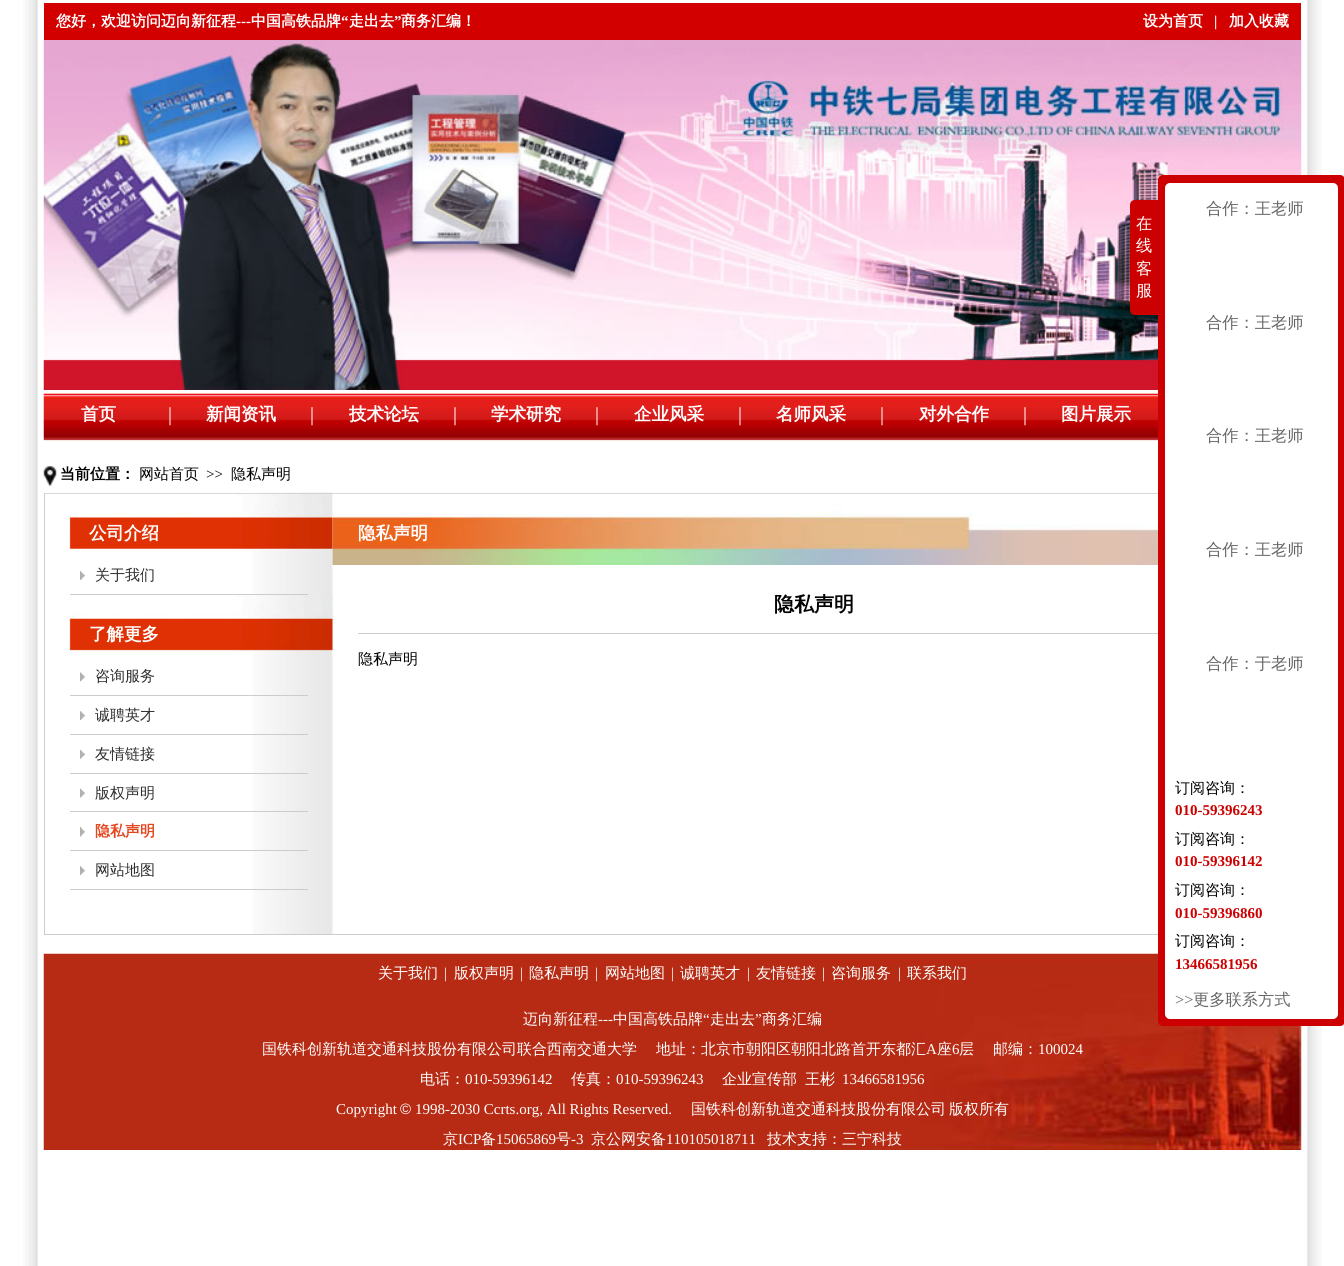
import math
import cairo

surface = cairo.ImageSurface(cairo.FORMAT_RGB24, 1344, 1266)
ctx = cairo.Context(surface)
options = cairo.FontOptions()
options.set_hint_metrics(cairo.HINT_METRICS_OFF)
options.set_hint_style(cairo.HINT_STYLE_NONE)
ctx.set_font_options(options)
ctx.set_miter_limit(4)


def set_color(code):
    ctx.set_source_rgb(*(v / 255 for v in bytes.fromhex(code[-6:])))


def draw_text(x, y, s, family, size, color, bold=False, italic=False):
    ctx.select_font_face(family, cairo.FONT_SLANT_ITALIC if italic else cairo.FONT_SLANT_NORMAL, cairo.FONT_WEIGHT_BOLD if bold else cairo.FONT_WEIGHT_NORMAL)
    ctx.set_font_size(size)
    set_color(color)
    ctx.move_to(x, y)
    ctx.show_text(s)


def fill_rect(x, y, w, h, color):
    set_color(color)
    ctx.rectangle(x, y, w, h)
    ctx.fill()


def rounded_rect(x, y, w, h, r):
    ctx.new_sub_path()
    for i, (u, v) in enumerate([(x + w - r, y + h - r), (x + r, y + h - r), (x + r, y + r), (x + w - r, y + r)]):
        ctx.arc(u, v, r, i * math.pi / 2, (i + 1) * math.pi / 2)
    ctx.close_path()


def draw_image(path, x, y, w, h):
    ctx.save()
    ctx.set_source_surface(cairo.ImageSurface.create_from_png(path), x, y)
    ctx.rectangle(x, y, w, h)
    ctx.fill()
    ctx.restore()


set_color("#ffffff")
ctx.paint()
draw_image("assets/img1.png", 23, 0, 1299, 1266)
fill_rect(44, 3, 1257, 37, "#d30000")
draw_text(56, 26, "您好，欢迎访问迈向新征程", "WenQuanYi Zen Hei", 15, "#ffffff", bold=True)
draw_text(251, 26, "中国高铁品牌", "WenQuanYi Zen Hei", 15, "#ffffff", bold=True)
draw_text(341, 26, "“", "Liberation Serif", 15, "#ffffff", bold=True)
draw_text(349, 26, "走出去", "WenQuanYi Zen Hei", 15, "#ffffff", bold=True)
draw_text(394, 26, "”", "Liberation Serif", 15, "#ffffff", bold=True)
draw_text(401, 26, "商务汇编！", "WenQuanYi Zen Hei", 15, "#ffffff", bold=True)
draw_text(236, 26, "---", "Liberation Serif", 15, "#ffffff", bold=True)
draw_text(1143, 26, "设为首页", "WenQuanYi Zen Hei", 15, "#ffffff", bold=True)
draw_text(1214, 26, "|", "Liberation Serif", 15, "#ffffff", bold=True)
draw_text(1229, 26, "加入收藏", "WenQuanYi Zen Hei", 15, "#ffffff", bold=True)
draw_image("assets/img2.png", 43, 40, 1259, 350)
draw_image("assets/img3.png", 43, 392, 1115, 49)
draw_text(81, 420, "首页", "WenQuanYi Zen Hei", 17.5, "#ffffff", bold=True)
draw_text(168, 421, "|", "Liberation Serif", 20, "#ffffff")
draw_text(206, 420, "新闻资讯", "WenQuanYi Zen Hei", 17.5, "#ffffff", bold=True)
draw_text(310, 421, "|", "Liberation Serif", 20, "#ffffff")
draw_text(349, 420, "技术论坛", "WenQuanYi Zen Hei", 17.5, "#ffffff", bold=True)
draw_text(453, 421, "|", "Liberation Serif", 20, "#ffffff")
draw_text(491, 420, "学术研究", "WenQuanYi Zen Hei", 17.5, "#ffffff", bold=True)
draw_text(595, 421, "|", "Liberation Serif", 20, "#ffffff")
draw_text(634, 420, "企业风采", "WenQuanYi Zen Hei", 17.5, "#ffffff", bold=True)
draw_text(738, 421, "|", "Liberation Serif", 20, "#ffffff")
draw_text(776, 420, "名师风采", "WenQuanYi Zen Hei", 17.5, "#ffffff", bold=True)
draw_text(880, 421, "|", "Liberation Serif", 20, "#ffffff")
draw_text(919, 420, "对外合作", "WenQuanYi Zen Hei", 17.5, "#ffffff", bold=True)
draw_text(1023, 421, "|", "Liberation Serif", 20, "#ffffff")
draw_text(1061, 420, "图片展示", "WenQuanYi Zen Hei", 17.5, "#ffffff", bold=True)
draw_image("assets/img4.png", 43, 466, 14, 21)
draw_text(60, 479, "当前位置：", "WenQuanYi Zen Hei", 15, "#000000", bold=True)
draw_text(139, 479, "网站首页", "WenQuanYi Zen Hei Medium", 15, "#000000")
draw_text(206, 479, ">>", "Liberation Serif", 15, "#000000")
draw_text(231, 479, "隐私声明", "WenQuanYi Zen Hei Medium", 15, "#000000")
set_color("#cc0000")
ctx.new_path()
ctx.move_to(1135, 200)
ctx.line_to(1158, 200)
ctx.line_to(1158, 315)
ctx.line_to(1135, 315)
ctx.curve_to(1132, 315, 1130, 313, 1130, 310)
ctx.line_to(1130, 205)
ctx.curve_to(1130, 202, 1132, 200, 1135, 200)
ctx.close_path()
ctx.fill()
draw_text(1136, 229, "在", "WenQuanYi Zen Hei Medium", 16.25, "#ffffff")
draw_text(1136, 251, "线", "WenQuanYi Zen Hei Medium", 16.25, "#ffffff")
draw_text(1136, 274, "客", "WenQuanYi Zen Hei Medium", 16.25, "#ffffff")
draw_text(1136, 296, "服", "WenQuanYi Zen Hei Medium", 16.25, "#ffffff")
draw_image("assets/img5.png", 253, 492, 905, 442)
ctx.rectangle(44.5, 493.5, 1256, 441)
set_color("#cccccc")
ctx.set_line_width(1)
ctx.stroke()
draw_image("assets/img15.png", 43, 953, 1259, 197)
set_color("#cc0000")
rounded_rect(1158, 175, 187, 851, 5)
ctx.fill()
set_color("#ffffff")
rounded_rect(1165, 183, 173, 836, 5)
ctx.fill()
draw_text(1206, 214, "合作：王老师", "WenQuanYi Zen Hei Medium", 16.25, "#666666")
draw_text(1206, 328, "合作：王老师", "WenQuanYi Zen Hei Medium", 16.25, "#666666")
draw_text(1206, 441, "合作：王老师", "WenQuanYi Zen Hei Medium", 16.25, "#666666")
draw_text(1206, 555, "合作：王老师", "WenQuanYi Zen Hei Medium", 16.25, "#666666")
draw_text(1206, 669, "合作：于老师", "WenQuanYi Zen Hei Medium", 16.25, "#666666")
draw_text(1175, 793, "订阅咨询：", "WenQuanYi Zen Hei Medium", 15, "#000000")
draw_text(1175, 815, "010-59396243", "Liberation Serif", 15, "#cc0000", bold=True)
draw_text(1175, 844, "订阅咨询：", "WenQuanYi Zen Hei Medium", 15, "#000000")
draw_text(1175, 866, "010-59396142", "Liberation Serif", 15, "#cc0000", bold=True)
draw_text(1175, 895, "订阅咨询：", "WenQuanYi Zen Hei Medium", 15, "#000000")
draw_text(1175, 918, "010-59396860", "Liberation Serif", 15, "#cc0000", bold=True)
draw_text(1175, 946, "订阅咨询：", "WenQuanYi Zen Hei Medium", 15, "#000000")
draw_text(1175, 969, "13466581956", "Liberation Serif", 15, "#cc0000", bold=True)
draw_text(1175, 1005, ">>", "Liberation Serif", 16.25, "#666666")
draw_text(1193, 1005, "更多联系方式", "WenQuanYi Zen Hei Medium", 16.25, "#666666")
draw_image("assets/img6.png", 45, 493, 288, 57)
draw_text(89, 539, "公司介绍", "WenQuanYi Zen Hei", 17.5, "#ffffff", bold=True)
fill_rect(70, 594, 238, 1, "#cccccc")
draw_image("assets/img7.png", 80, 571, 5, 9)
draw_text(95, 580, "关于我们", "WenQuanYi Zen Hei Medium", 15, "#2d2d2d")
draw_image("assets/img8.png", 68, 595, 265, 56)
draw_text(89, 640, "了解更多", "WenQuanYi Zen Hei", 17.5, "#ffffff", bold=True)
fill_rect(70, 695, 238, 1, "#cccccc")
draw_image("assets/img9.png", 80, 672, 5, 10)
draw_text(95, 681, "咨询服务", "WenQuanYi Zen Hei Medium", 15, "#2d2d2d")
fill_rect(70, 734, 238, 1, "#cccccc")
draw_image("assets/img7.png", 80, 711, 5, 9)
draw_text(95, 720, "诚聘英才", "WenQuanYi Zen Hei Medium", 15, "#2d2d2d")
fill_rect(70, 773, 238, 1, "#cccccc")
draw_image("assets/img10.png", 80, 750, 5, 9)
draw_text(95, 759, "友情链接", "WenQuanYi Zen Hei Medium", 15, "#2d2d2d")
fill_rect(70, 811, 238, 1, "#cccccc")
draw_image("assets/img11.png", 80, 788, 5, 10)
draw_text(95, 798, "版权声明", "WenQuanYi Zen Hei Medium", 15, "#2d2d2d")
draw_image("assets/img12.png", 80, 827, 5, 10)
fill_rect(70, 850, 238, 1, "#cccccc")
draw_image("assets/img13.png", 80, 827, 5, 10)
draw_text(95, 836, "隐私声明", "WenQuanYi Zen Hei", 15, "#e5461e", bold=True)
fill_rect(70, 889, 238, 1, "#cccccc")
draw_image("assets/img7.png", 80, 866, 5, 9)
draw_text(95, 875, "网站地图", "WenQuanYi Zen Hei Medium", 15, "#2d2d2d")
draw_image("assets/img14.png", 332, 493, 826, 72)
draw_text(358, 539, "隐私声明", "WenQuanYi Zen Hei", 17.5, "#ffffff", bold=True)
fill_rect(358, 633, 800, 1, "#cccccc")
draw_text(774, 611, "隐私声明", "WenQuanYi Zen Hei", 20, "#000000", bold=True)
draw_text(358, 664, "隐私声明", "WenQuanYi Zen Hei Medium", 15, "#000000")
draw_text(378, 978, "关于我们", "WenQuanYi Zen Hei Medium", 15, "#ffffff")
draw_text(444, 978, "|", "Liberation Serif", 15, "#ffffff")
draw_text(454, 978, "版权声明", "WenQuanYi Zen Hei Medium", 15, "#ffffff")
draw_text(520, 978, "|", "Liberation Serif", 15, "#ffffff")
draw_text(529, 978, "隐私声明", "WenQuanYi Zen Hei Medium", 15, "#ffffff")
draw_text(595, 978, "|", "Liberation Serif", 15, "#ffffff")
draw_text(605, 978, "网站地图", "WenQuanYi Zen Hei Medium", 15, "#ffffff")
draw_text(671, 978, "|", "Liberation Serif", 15, "#ffffff")
draw_text(680, 978, "诚聘英才", "WenQuanYi Zen Hei Medium", 15, "#ffffff")
draw_text(747, 978, "|", "Liberation Serif", 15, "#ffffff")
draw_text(756, 978, "友情链接", "WenQuanYi Zen Hei Medium", 15, "#ffffff")
draw_text(822, 978, "|", "Liberation Serif", 15, "#ffffff")
draw_text(831, 978, "咨询服务", "WenQuanYi Zen Hei Medium", 15, "#ffffff")
draw_text(898, 978, "|", "Liberation Serif", 15, "#ffffff")
draw_text(907, 978, "联系我们", "WenQuanYi Zen Hei Medium", 15, "#ffffff")
draw_text(523, 1024, "迈向新征程", "WenQuanYi Zen Hei Medium", 15, "#ffffff")
draw_text(613, 1024, "中国高铁品牌", "WenQuanYi Zen Hei Medium", 15, "#ffffff")
draw_text(703, 1024, "“", "Liberation Serif", 15, "#ffffff")
draw_text(710, 1024, "走出去", "WenQuanYi Zen Hei Medium", 15, "#ffffff")
draw_text(755, 1024, "”", "Liberation Serif", 15, "#ffffff")
draw_text(762, 1024, "商务汇编", "WenQuanYi Zen Hei Medium", 15, "#ffffff")
draw_text(598, 1024, "---", "Liberation Serif", 15, "#ffffff")
draw_text(262, 1054, "国铁科创新轨道交通科技股份有限公司联合西南交通大学", "WenQuanYi Zen Hei Medium", 15, "#ffffff")
draw_text(656, 1054, "地址：北京市朝阳区朝阳北路首开东都汇", "WenQuanYi Zen Hei Medium", 15, "#ffffff")
draw_text(926, 1054, "A", "Liberation Serif", 15, "#ffffff")
draw_text(937, 1054, "座", "WenQuanYi Zen Hei Medium", 15, "#ffffff")
draw_text(952, 1054, "6", "Liberation Serif", 15, "#ffffff")
draw_text(959, 1054, "层", "WenQuanYi Zen Hei Medium", 15, "#ffffff")
draw_text(993, 1054, "邮编：", "WenQuanYi Zen Hei Medium", 15, "#ffffff")
draw_text(1038, 1054, "100024", "Liberation Serif", 15, "#ffffff")
draw_text(420, 1084, "电话：", "WenQuanYi Zen Hei Medium", 15, "#ffffff")
draw_text(465, 1084, "010-59396142", "Liberation Serif", 15, "#ffffff")
draw_text(571, 1084, "传真：", "WenQuanYi Zen Hei Medium", 15, "#ffffff")
draw_text(616, 1084, "010-59396243", "Liberation Serif", 15, "#ffffff")
draw_text(722, 1084, "企业宣传部", "WenQuanYi Zen Hei Medium", 15, "#ffffff")
draw_text(805, 1084, "王彬", "WenQuanYi Zen Hei Medium", 15, "#ffffff")
draw_text(842, 1084, "13466581956", "Liberation Serif", 15, "#ffffff")
draw_text(336, 1114, "Copyright", "Liberation Serif", 15, "#ffffff")
draw_text(400, 1114, "©", "Liberation Sans", 15, "#ffffff")
draw_text(415, 1114, "1998-2030 Ccrts.org, All Rights Reserved.", "Liberation Serif", 15, "#ffffff")
draw_text(691, 1114, "国铁科创新轨道交通科技股份有限公司", "WenQuanYi Zen Hei Medium", 15, "#ffffff")
draw_text(949, 1114, "版权所有", "WenQuanYi Zen Hei Medium", 15, "#ffffff")
draw_text(443, 1144, "京", "WenQuanYi Zen Hei Medium", 15, "#ffffff")
draw_text(458, 1144, "ICP", "Liberation Serif", 15, "#ffffff")
draw_text(481, 1144, "备", "WenQuanYi Zen Hei Medium", 15, "#ffffff")
draw_text(496, 1144, "15065869", "Liberation Serif", 15, "#ffffff")
draw_text(556, 1144, "号", "WenQuanYi Zen Hei Medium", 15, "#ffffff")
draw_text(571, 1144, "-3", "Liberation Serif", 15, "#ffffff")
draw_text(591, 1144, "京公网安备", "WenQuanYi Zen Hei Medium", 15, "#ffffff")
draw_text(666, 1144, "110105018711", "Liberation Serif", 15, "#ffffff")
draw_text(767, 1144, "技术支持：三宁科技", "WenQuanYi Zen Hei Medium", 15, "#ffffff")
surface.write_to_png("output.png")
